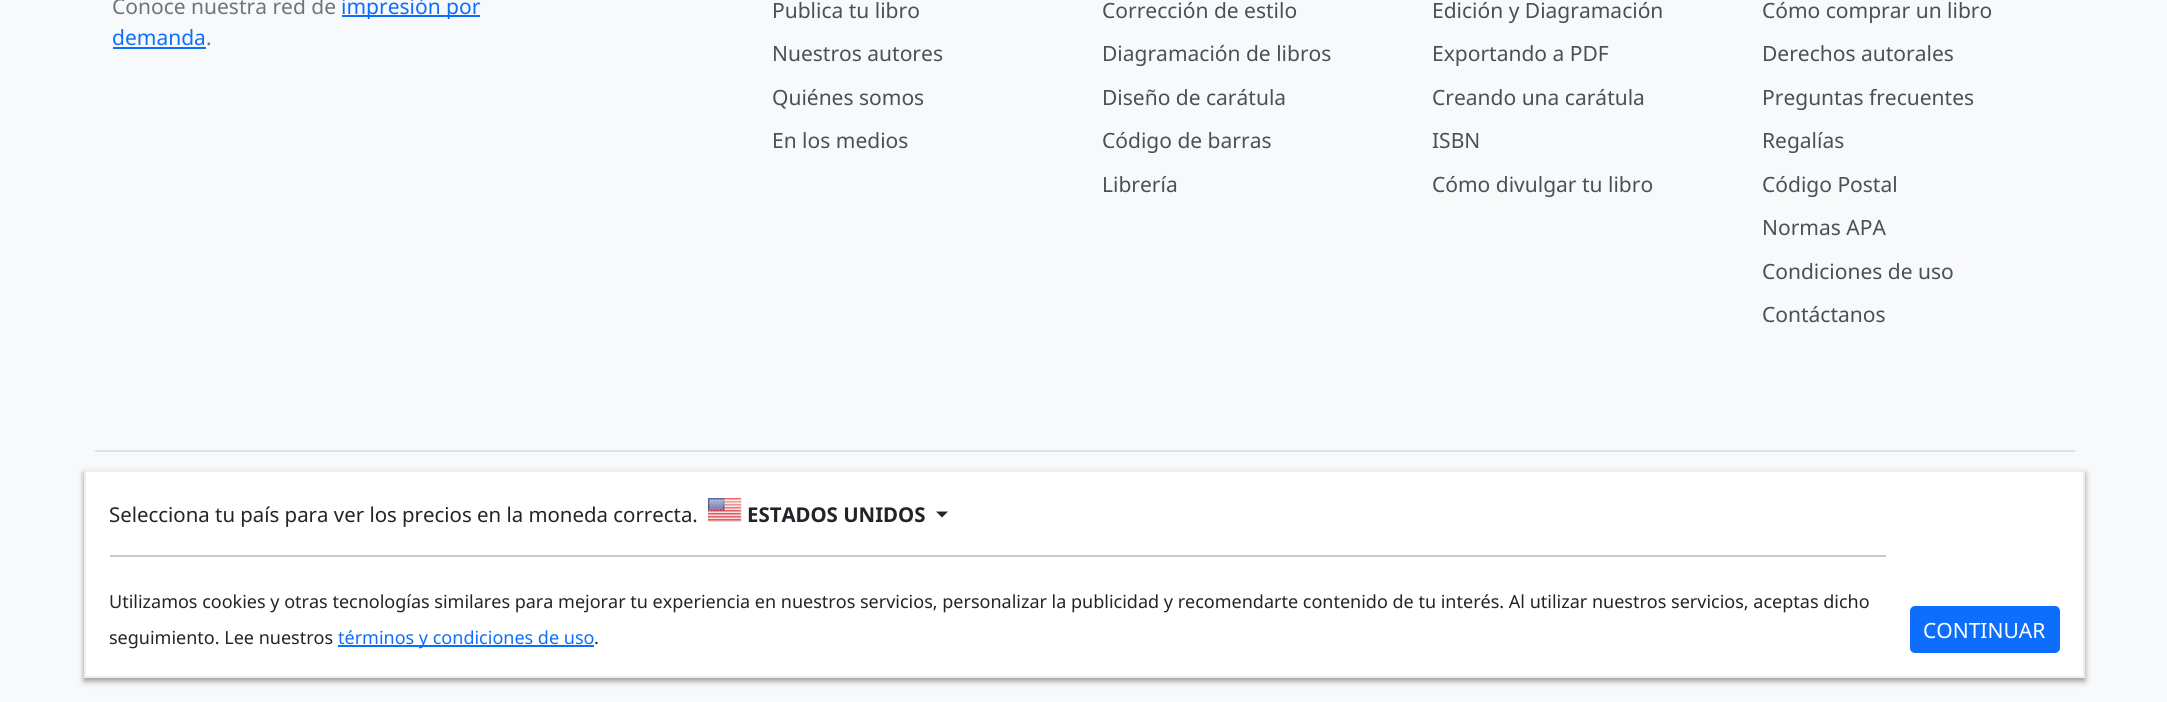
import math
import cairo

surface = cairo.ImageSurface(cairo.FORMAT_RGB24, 2167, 702)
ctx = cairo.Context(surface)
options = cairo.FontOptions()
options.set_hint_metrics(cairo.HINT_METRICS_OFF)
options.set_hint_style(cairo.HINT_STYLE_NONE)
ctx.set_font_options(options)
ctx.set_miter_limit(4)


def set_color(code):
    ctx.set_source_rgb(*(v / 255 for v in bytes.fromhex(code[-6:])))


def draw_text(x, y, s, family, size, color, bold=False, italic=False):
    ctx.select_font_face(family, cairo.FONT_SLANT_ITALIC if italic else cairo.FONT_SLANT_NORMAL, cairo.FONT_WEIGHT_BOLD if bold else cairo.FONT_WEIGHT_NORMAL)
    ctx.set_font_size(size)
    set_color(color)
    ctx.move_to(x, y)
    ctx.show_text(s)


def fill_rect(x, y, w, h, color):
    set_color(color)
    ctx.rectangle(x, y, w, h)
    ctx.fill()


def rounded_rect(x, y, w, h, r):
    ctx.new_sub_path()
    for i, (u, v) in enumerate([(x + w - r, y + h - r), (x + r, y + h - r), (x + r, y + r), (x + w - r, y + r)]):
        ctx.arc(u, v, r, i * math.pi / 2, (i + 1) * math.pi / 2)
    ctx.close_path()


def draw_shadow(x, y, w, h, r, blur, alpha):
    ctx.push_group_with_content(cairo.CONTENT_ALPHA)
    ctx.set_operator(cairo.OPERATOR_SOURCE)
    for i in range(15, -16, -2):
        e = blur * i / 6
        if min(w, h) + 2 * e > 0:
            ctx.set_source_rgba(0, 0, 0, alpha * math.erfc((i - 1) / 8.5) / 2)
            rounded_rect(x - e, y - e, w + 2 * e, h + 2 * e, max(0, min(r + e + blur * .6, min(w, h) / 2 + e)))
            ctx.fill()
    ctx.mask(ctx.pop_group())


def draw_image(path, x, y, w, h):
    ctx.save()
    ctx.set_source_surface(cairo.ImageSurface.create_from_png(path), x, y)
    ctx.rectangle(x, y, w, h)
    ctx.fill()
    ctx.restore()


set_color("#f8f9fa")
ctx.paint()
draw_text(112, 14, "Conoce nuestra red de", "Noto Sans", 21, "#6c757d")
fill_rect(342, 15, 138, 2, "#0d6efd")
draw_text(341, 14, "impresión por", "Noto Sans", 21, "#0d6efd")
draw_text(112, 45, "demanda", "Noto Sans", 21, "#0d6efd")
fill_rect(113, 47, 93, 2, "#0d6efd")
draw_text(206, 45, ".", "Noto Sans", 21, "#6c757d")
draw_text(772, 18, "Publica tu libro", "Noto Sans", 21, "#495057")
draw_text(772, 61, "Nuestros autores", "Noto Sans", 21, "#495057")
draw_text(772, 105, "Quiénes somos", "Noto Sans", 21, "#495057")
draw_text(772, 148, "En los medios", "Noto Sans", 21, "#495057")
draw_text(1102, 18, "Corrección de estilo", "Noto Sans", 21, "#495057")
draw_text(1102, 61, "Diagramación de libros", "Noto Sans", 21, "#495057")
draw_text(1102, 105, "Diseño de carátula", "Noto Sans", 21, "#495057")
draw_text(1102, 148, "Código de barras", "Noto Sans", 21, "#495057")
draw_text(1102, 192, "Librería", "Noto Sans", 21, "#495057")
draw_text(1432, 18, "Edición y Diagramación", "Noto Sans", 21, "#495057")
draw_text(1432, 61, "Exportando a PDF", "Noto Sans", 21, "#495057")
draw_text(1432, 105, "Creando una carátula", "Noto Sans", 21, "#495057")
draw_text(1432, 148, "ISBN", "Noto Sans", 21, "#495057")
draw_text(1432, 192, "Cómo divulgar tu libro", "Noto Sans", 21, "#495057")
draw_text(1762, 18, "Cómo comprar un libro", "Noto Sans", 21, "#495057")
draw_text(1762, 61, "Derechos autorales", "Noto Sans", 21, "#495057")
draw_text(1762, 105, "Preguntas frecuentes", "Noto Sans", 21, "#495057")
draw_text(1762, 148, "Regalías", "Noto Sans", 21, "#495057")
draw_text(1762, 192, "Código Postal", "Noto Sans", 21, "#495057")
draw_text(1762, 235, "Normas APA", "Noto Sans", 21, "#495057")
draw_text(1762, 279, "Condiciones de uso", "Noto Sans", 21, "#495057")
draw_text(1762, 322, "Contáctanos", "Noto Sans", 21, "#495057")
fill_rect(95, 450, 1980, 2, "#dee2e6")
set_color("#000000")
draw_shadow(84, 473, 2001, 208, 0, 3, 0.4)
set_color("#ffffff")
ctx.rectangle(85, 471, 1999, 206)
ctx.fill_preserve()
set_color("#eeeeee")
ctx.stroke()
draw_text(109, 522, "Selecciona tu país para ver los precios en la moneda correcta.", "Noto Sans", 20.4, "#212529")
draw_image("assets/img1.png", 708, 498, 34, 24)
draw_text(747, 522, "ESTADOS UNIDOS", "Noto Sans", 20.4, "#212529", bold=True)
ctx.new_path()
ctx.move_to(936, 511.5)
ctx.line_to(948, 511.5)
ctx.line_to(942, 517.5)
ctx.close_path()
ctx.fill()
fill_rect(110, 555, 1776, 2, "#c8c9ca")
draw_text(109, 608, "Utilizamos cookies y otras tecnologías similares para mejorar tu experiencia en nuestros servicios, personalizar la publicidad y recomendarte contenido de tu interés. Al utilizar nuestros servicios, aceptas dicho", "Noto Sans", 18, "#212529")
draw_text(109, 644, "seguimiento. Lee nuestros", "Noto Sans", 18, "#212529")
fill_rect(338, 645, 256, 2, "#0d6efd")
draw_text(338, 644, "términos y condiciones de uso", "Noto Sans", 18, "#0d6efd")
draw_text(594, 644, ".", "Noto Sans", 18, "#212529")
set_color("#0d6efd")
rounded_rect(1911, 607, 148, 45, 4)
ctx.fill_preserve()
ctx.stroke()
draw_text(1923, 638, "CONTINUAR", "Noto Sans", 21, "#ffffff")
surface.write_to_png("output.png")
